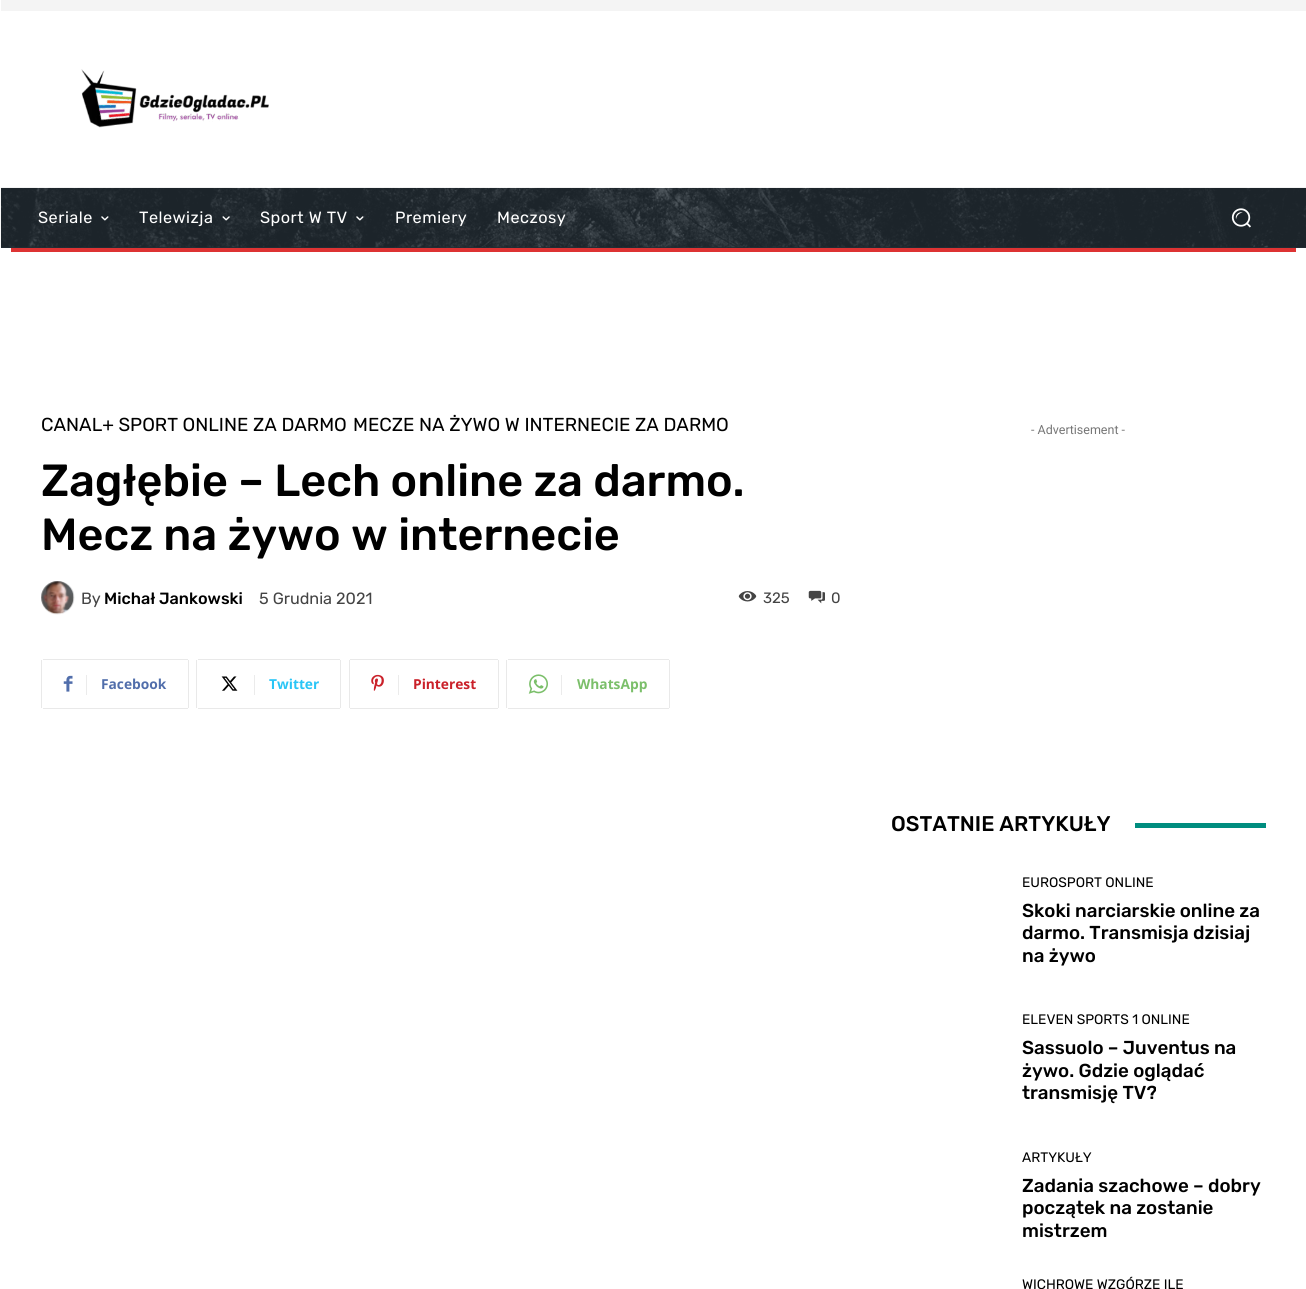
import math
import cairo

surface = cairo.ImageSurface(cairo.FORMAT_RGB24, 1306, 1289)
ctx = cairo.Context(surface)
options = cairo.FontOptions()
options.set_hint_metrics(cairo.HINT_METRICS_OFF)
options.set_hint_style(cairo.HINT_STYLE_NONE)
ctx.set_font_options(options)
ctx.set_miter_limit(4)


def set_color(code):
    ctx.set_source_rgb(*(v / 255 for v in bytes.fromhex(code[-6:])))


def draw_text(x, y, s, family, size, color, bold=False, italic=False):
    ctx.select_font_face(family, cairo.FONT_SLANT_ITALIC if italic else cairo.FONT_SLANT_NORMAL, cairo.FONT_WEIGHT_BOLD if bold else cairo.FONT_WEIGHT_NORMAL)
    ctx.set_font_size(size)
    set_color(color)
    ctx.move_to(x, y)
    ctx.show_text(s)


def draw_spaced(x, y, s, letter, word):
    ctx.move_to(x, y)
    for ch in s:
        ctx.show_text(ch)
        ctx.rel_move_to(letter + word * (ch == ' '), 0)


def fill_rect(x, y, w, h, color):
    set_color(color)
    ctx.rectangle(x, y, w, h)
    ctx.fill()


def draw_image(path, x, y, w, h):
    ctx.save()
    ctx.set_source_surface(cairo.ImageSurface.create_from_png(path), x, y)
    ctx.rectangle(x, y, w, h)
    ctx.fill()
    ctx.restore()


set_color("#ffffff")
ctx.paint()
fill_rect(1, 0, 1305, 11, "#f4f4f4")
draw_image("assets/img1.png", 81, 69, 188, 59)
fill_rect(1, 188, 1305, 60, "#232d35")
draw_image("assets/img2.png", 0, 187, 1306, 61)
ctx.select_font_face("Rubik")
ctx.set_font_size(16.25)
set_color("#ffffff")
draw_spaced(38, 223, "Seriale", 0.5, 0)
draw_image("assets/img3.png", 101, 216, 8, 5)
draw_spaced(139, 223, "Telewizja", 0.5, 0)
draw_image("assets/img4.png", 222, 216, 8, 5)
draw_spaced(260, 223, "Sport W TV", 0.5, 0)
draw_image("assets/img5.png", 356, 216, 8, 5)
draw_spaced(395, 223, "Premiery", 0.5, 0)
draw_spaced(497, 223, "Meczosy", 0.5, 0)
draw_image("assets/img6.png", 1231, 208, 20, 20)
fill_rect(11, 248, 1285, 4, "#dd3333")
draw_text(41, 431, "CANAL+ SPORT ONLINE ZA DARMO", "Rubik", 18.75, "#000000")
draw_text(353, 431, "MECZE NA ŻYWO W INTERNECIE ZA DARMO", "Rubik", 18.75, "#000000")
draw_text(41, 496, "Zagłębie – Lech online za darmo.", "Rubik Medium", 45, "#000000")
draw_text(41, 550, "Mecz na żywo w internecie", "Rubik Medium", 45, "#000000")
draw_image("assets/img7.png", 41, 581, 34, 34)
draw_text(81, 604, "By", "Rubik", 16.25, "#444444")
draw_text(104, 604, "Michał Jankowski", "Rubik Medium", 16.25, "#000000")
draw_text(259, 604, "5 Grudnia 2021", "Rubik", 16.25, "#444444")
draw_image("assets/img8.png", 738, 591, 19, 11)
draw_text(763, 603, "325", "Rubik", 15, "#444444")
draw_image("assets/img9.png", 808, 590, 17, 14)
draw_text(831, 603, "0", "Rubik", 15, "#444444")
fill_rect(41, 660, 1, 48, "#e9e9e9")
draw_image("assets/img10.png", 63, 675, 10, 17)
fill_rect(43, 659, 145, 1, "#e9e9e9")
fill_rect(188, 660, 1, 48, "#e9e9e9")
fill_rect(43, 708, 145, 1, "#e9e9e9")
fill_rect(86, 675, 1, 20, "#ebebeb")
draw_text(101, 689, "Facebook", "Open Sans", 13.75, "#516eab", bold=True)
fill_rect(196, 660, 1, 48, "#e9e9e9")
draw_image("assets/img11.png", 221, 676, 17, 15)
fill_rect(198, 659, 142, 1, "#e9e9e9")
fill_rect(340, 660, 1, 48, "#e9e9e9")
fill_rect(198, 708, 142, 1, "#e9e9e9")
fill_rect(254, 675, 1, 20, "#ebebeb")
draw_text(269, 689, "Twitter", "Open Sans", 13.75, "#29c5f6", bold=True)
fill_rect(349, 660, 1, 48, "#e9e9e9")
draw_image("assets/img12.png", 371, 674, 13, 17)
fill_rect(350, 659, 148, 1, "#e9e9e9")
fill_rect(498, 660, 1, 48, "#e9e9e9")
fill_rect(350, 708, 148, 1, "#e9e9e9")
fill_rect(398, 675, 1, 20, "#ebebeb")
draw_text(413, 689, "Pinterest", "Open Sans", 13.75, "#ca212a", bold=True)
fill_rect(506, 660, 1, 48, "#e9e9e9")
draw_image("assets/img13.png", 528, 674, 20, 20)
fill_rect(508, 659, 161, 1, "#e9e9e9")
fill_rect(669, 660, 1, 48, "#e9e9e9")
fill_rect(508, 708, 161, 1, "#e9e9e9")
fill_rect(561, 675, 1, 20, "#ebebeb")
draw_text(577, 689, "WhatsApp", "Open Sans", 13.75, "#7bbf6a", bold=True)
draw_text(1031, 434, "- Advertisement -", "Roboto", 12.5, "#767676")
draw_text(891, 831, "OSTATNIE ARTYKUŁY", "Rubik Medium", 21.25, "#000000")
fill_rect(1135, 823, 131, 5, "#008d7f")
draw_text(1022, 887, "EUROSPORT ONLINE", "Rubik", 13.75, "#000000")
draw_text(1022, 917, "Skoki narciarskie online za", "Rubik Medium", 18.75, "#000000")
draw_text(1022, 939, "darmo. Transmisja dzisiaj", "Rubik Medium", 18.75, "#000000")
draw_text(1022, 962, "na żywo", "Rubik Medium", 18.75, "#000000")
draw_text(1022, 1024, "ELEVEN SPORTS 1 ONLINE", "Rubik", 13.75, "#000000")
draw_text(1022, 1054, "Sassuolo – Juventus na", "Rubik Medium", 18.75, "#000000")
draw_text(1022, 1077, "żywo. Gdzie oglądać", "Rubik Medium", 18.75, "#000000")
draw_text(1022, 1099, "transmisję TV?", "Rubik Medium", 18.75, "#000000")
draw_text(1022, 1162, "ARTYKUŁY", "Rubik", 13.75, "#000000")
draw_text(1022, 1192, "Zadania szachowe – dobry", "Rubik Medium", 18.75, "#000000")
draw_text(1022, 1214, "początek na zostanie", "Rubik Medium", 18.75, "#000000")
draw_text(1022, 1237, "mistrzem", "Rubik Medium", 18.75, "#000000")
draw_text(1022, 1289, "WICHROWE WZGÓRZE ILE", "Rubik", 13.75, "#000000")
surface.write_to_png("output.png")
